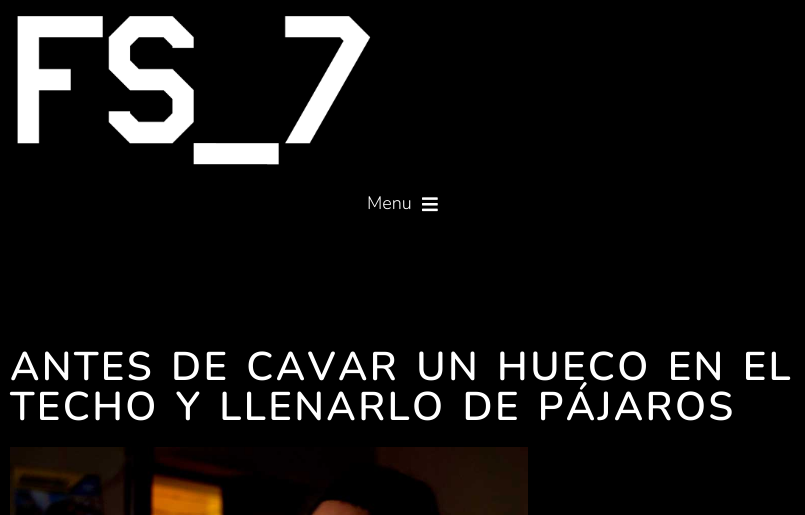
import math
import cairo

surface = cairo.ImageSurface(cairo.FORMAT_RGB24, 805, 515)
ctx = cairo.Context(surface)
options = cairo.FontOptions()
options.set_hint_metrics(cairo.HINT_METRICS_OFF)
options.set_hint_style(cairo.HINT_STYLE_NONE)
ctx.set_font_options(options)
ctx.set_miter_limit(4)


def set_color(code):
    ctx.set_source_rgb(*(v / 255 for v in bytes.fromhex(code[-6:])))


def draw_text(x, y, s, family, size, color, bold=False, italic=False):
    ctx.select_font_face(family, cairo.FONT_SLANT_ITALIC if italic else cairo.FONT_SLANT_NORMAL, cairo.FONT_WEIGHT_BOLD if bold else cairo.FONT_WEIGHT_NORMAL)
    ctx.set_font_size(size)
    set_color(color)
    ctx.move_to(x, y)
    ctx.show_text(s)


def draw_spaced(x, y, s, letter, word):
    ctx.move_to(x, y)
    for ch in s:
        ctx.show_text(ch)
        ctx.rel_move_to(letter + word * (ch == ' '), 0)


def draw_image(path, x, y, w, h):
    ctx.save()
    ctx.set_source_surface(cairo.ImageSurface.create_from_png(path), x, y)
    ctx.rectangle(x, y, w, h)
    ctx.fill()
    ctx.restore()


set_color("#000000")
ctx.paint()
draw_image("assets/img1.png", 17, 16, 354, 149)
draw_text(367, 209, "Menu", "Nunito Light", 18, "#ffffff")
draw_image("assets/img2.png", 422, 197, 16, 15)
ctx.select_font_face("Nunito SemiBold")
ctx.set_font_size(40)
draw_spaced(10, 380, "ANTES DE CAVAR UN HUECO EN EL", 2.4, 4)
draw_spaced(10, 420, "TECHO Y LLENARLO DE PÁJAROS", 2.4, 4)
draw_image("assets/img3.png", 10, 447, 518, 68)
surface.write_to_png("output.png")
